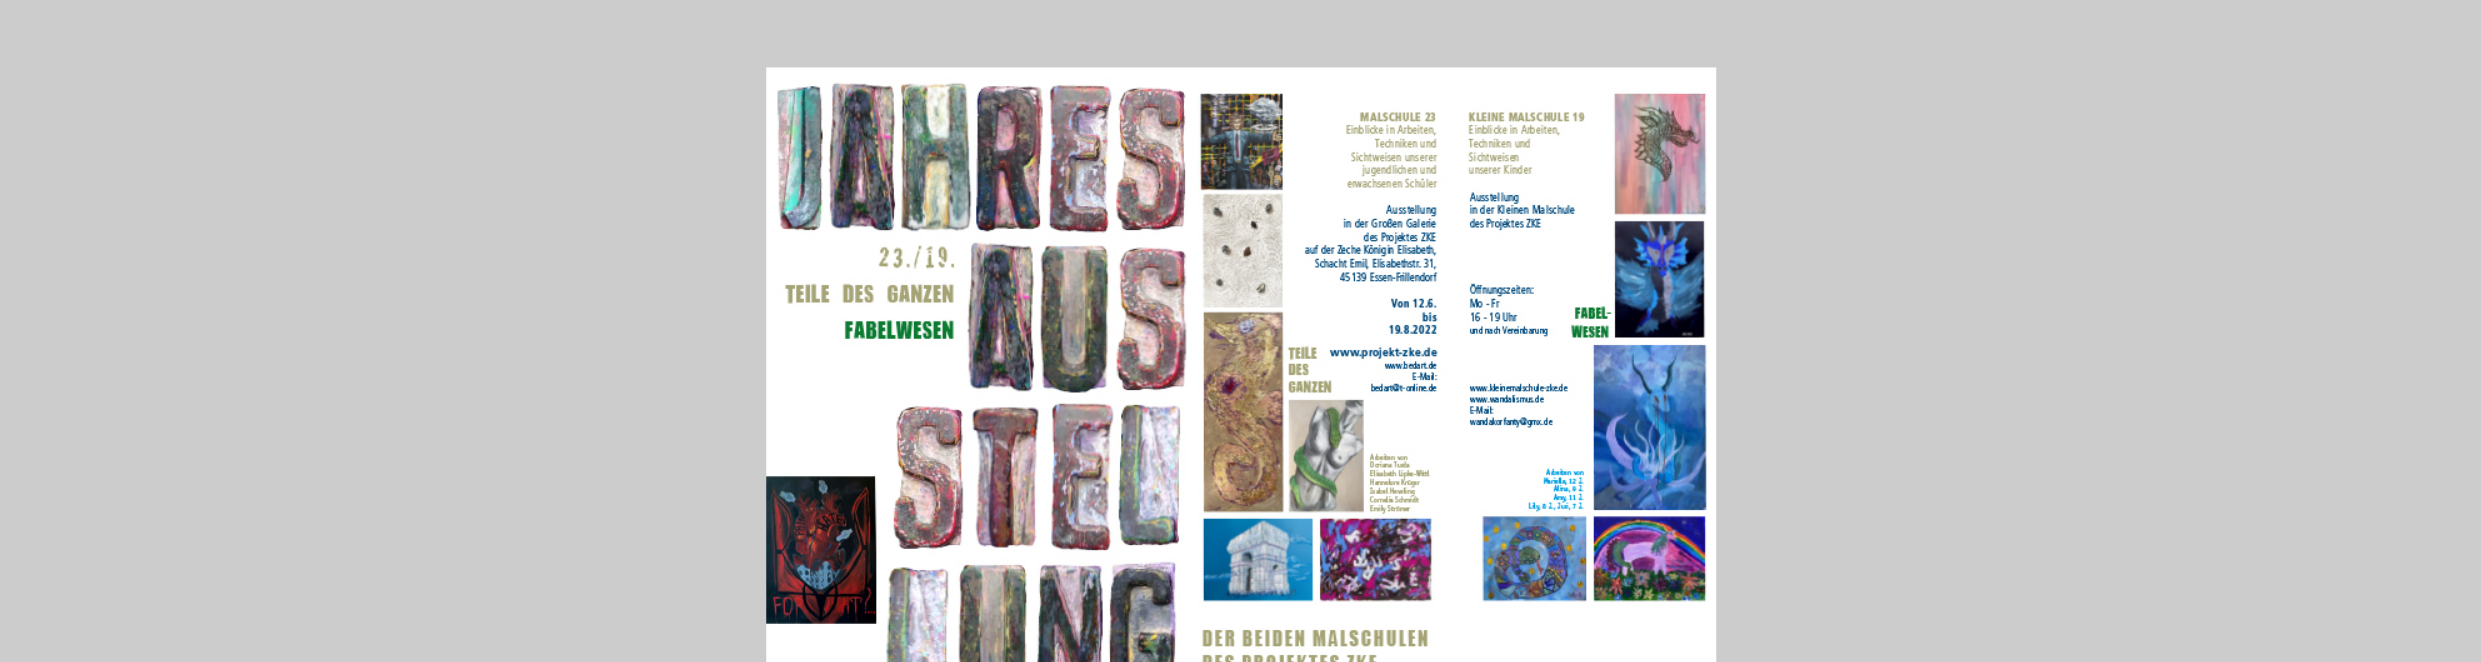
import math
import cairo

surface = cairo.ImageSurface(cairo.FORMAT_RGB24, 2481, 662)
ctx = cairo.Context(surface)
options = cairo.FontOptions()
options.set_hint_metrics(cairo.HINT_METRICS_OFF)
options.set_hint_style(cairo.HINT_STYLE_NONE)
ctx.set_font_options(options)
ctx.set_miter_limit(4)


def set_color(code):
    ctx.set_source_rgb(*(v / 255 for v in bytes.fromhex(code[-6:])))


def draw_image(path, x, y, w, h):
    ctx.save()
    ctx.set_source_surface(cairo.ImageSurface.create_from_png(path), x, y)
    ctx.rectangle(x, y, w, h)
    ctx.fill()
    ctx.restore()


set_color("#cccccc")
ctx.paint()
draw_image("assets/img1.png", 766, 67, 951, 595)
surface.write_to_png("output.png")
